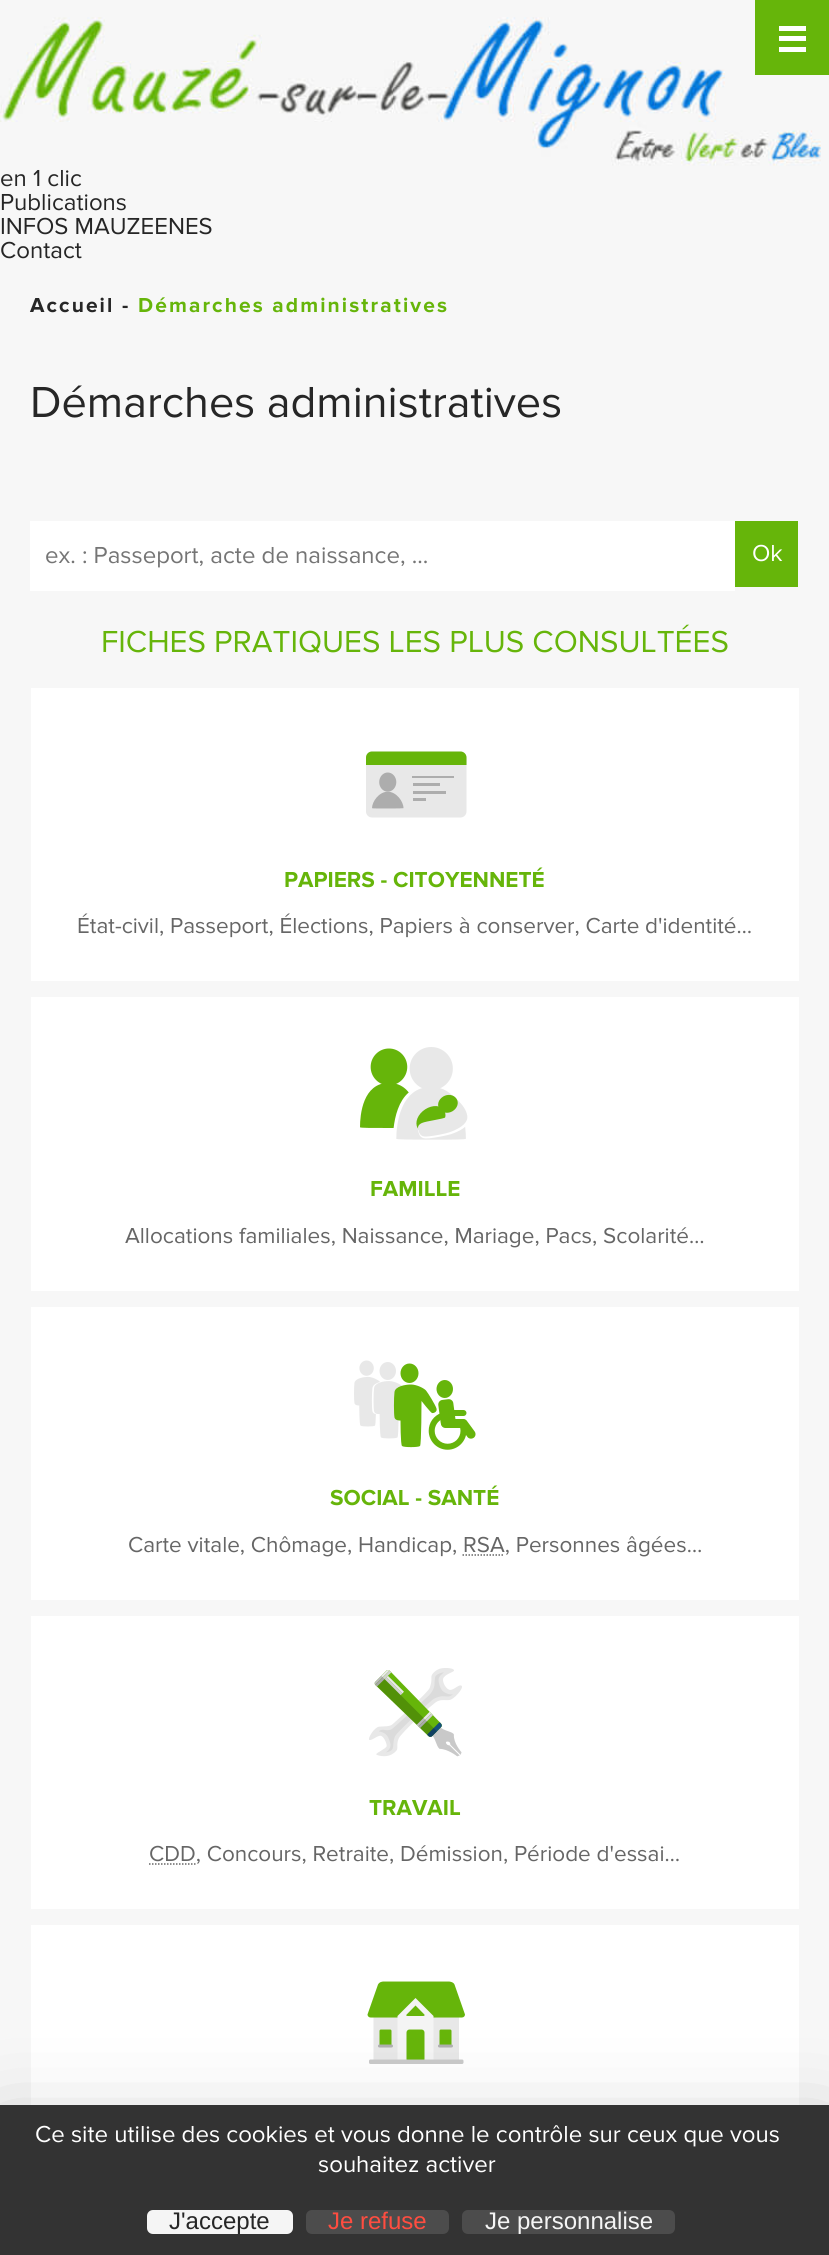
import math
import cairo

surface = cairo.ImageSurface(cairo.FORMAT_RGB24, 829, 2255)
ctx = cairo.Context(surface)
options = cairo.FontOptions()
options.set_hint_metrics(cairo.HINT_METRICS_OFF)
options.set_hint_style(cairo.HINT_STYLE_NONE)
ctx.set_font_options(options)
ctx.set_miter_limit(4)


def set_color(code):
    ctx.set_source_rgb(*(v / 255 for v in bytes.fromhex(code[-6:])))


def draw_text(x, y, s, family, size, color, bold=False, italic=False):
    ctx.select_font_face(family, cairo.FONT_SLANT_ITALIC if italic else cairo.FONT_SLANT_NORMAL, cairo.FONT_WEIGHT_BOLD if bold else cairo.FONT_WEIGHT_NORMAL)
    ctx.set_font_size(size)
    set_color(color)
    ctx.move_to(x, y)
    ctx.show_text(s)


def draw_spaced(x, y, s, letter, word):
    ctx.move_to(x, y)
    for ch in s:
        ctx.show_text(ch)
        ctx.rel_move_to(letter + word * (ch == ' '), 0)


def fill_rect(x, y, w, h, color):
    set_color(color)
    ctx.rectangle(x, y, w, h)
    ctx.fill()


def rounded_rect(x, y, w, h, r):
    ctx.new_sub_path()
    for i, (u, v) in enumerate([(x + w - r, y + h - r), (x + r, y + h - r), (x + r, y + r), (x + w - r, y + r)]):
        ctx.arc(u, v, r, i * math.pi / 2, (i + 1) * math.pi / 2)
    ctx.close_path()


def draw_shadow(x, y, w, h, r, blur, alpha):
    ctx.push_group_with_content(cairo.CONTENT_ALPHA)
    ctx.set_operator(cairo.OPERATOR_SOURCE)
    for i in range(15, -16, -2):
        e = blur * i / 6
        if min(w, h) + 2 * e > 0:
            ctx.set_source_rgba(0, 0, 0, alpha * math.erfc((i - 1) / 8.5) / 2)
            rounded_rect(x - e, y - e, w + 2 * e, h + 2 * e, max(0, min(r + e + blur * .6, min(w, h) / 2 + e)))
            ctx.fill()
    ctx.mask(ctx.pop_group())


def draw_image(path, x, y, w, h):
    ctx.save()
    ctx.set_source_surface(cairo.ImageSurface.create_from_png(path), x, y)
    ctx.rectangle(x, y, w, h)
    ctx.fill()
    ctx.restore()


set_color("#f7f7f7")
ctx.paint()
draw_image("assets/img1.png", 0, 17, 821, 149)
fill_rect(755, 0, 74, 75, "#66b50a")
fill_rect(779, 36, 27, 5, "#ffffff")
fill_rect(779, 26, 27, 5, "#ffffff")
fill_rect(779, 47, 27, 5, "#ffffff")
draw_text(0, 186, "en 1 clic", "Proxima Nova", 24, "#262626")
draw_text(0, 210, "Publications", "Proxima Nova", 24, "#262626")
draw_text(0, 234, "INFOS MAUZEENES", "Proxima Nova", 24, "#262626")
draw_text(0, 258, "Contact", "Proxima Nova", 24, "#262626")
ctx.select_font_face("Proxima Nova", cairo.FONT_SLANT_NORMAL, cairo.FONT_WEIGHT_BOLD)
ctx.set_font_size(21)
draw_spaced(30, 312, "Accueil -", 2.1, 0)
set_color("#66b50a")
draw_spaced(138, 312, "Démarches administratives", 2.1, 0)
draw_text(30, 417, "Démarches administratives", "Proxima Nova", 45, "#262626")
fill_rect(30, 521, 705, 70, "#ffffff")
draw_text(45, 563, "ex. : Passeport, acte de naissance, ...", "Proxima Nova", 24, "#757575")
fill_rect(735, 521, 63, 66, "#66b50a")
draw_text(752, 561, "Ok", "Proxima Nova", 24, "#ffffff")
draw_text(101, 652, "FICHES PRATIQUES LES PLUS CONSULTÉES", "Proxima Nova", 31.5, "#66b50a")
fill_rect(31, 688, 768, 293, "#ffffff")
draw_image("assets/img2.png", 366, 751, 101, 67)
draw_text(284, 887, "PAPIERS - CITOYENNETÉ", "Proxima Nova", 22.5, "#66b50a", bold=True)
draw_text(77, 933, "État-civil, Passeport, Élections, Papiers à conserver, Carte d'identité…", "Proxima Nova", 22.5, "#666666")
fill_rect(31, 997, 768, 294, "#ffffff")
draw_image("assets/img3.png", 360, 1047, 108, 93)
draw_text(370, 1196, "FAMILLE", "Proxima Nova", 22.5, "#66b50a", bold=True)
draw_text(125, 1243, "Allocations familiales, Naissance, Mariage, Pacs, Scolarité…", "Proxima Nova", 22.5, "#666666")
fill_rect(31, 1307, 768, 293, "#ffffff")
draw_image("assets/img4.png", 354, 1360, 122, 90)
draw_text(330, 1505, "SOCIAL - SANTÉ", "Proxima Nova", 22.5, "#66b50a", bold=True)
draw_text(128, 1552, "Carte vitale, Chômage, Handicap, RSA, Personnes âgées…", "Proxima Nova", 22.5, "#666666")
ctx.new_path()
ctx.move_to(462.5, 1555)
ctx.line_to(504.5, 1555)
ctx.set_line_width(1.5)
ctx.set_dash([1.5, 1.5])
ctx.stroke()
fill_rect(31, 1616, 768, 293, "#ffffff")
draw_image("assets/img5.png", 369, 1668, 93, 89)
draw_text(369, 1815, "TRAVAIL", "Proxima Nova", 22.5, "#66b50a", bold=True)
ctx.new_path()
ctx.move_to(149, 1864)
ctx.line_to(196, 1864)
set_color("#666666")
ctx.stroke()
draw_text(149, 1861, "CDD, Concours, Retraite, Démission, Période d'essai…", "Proxima Nova", 22.5, "#666666")
fill_rect(31, 1925, 768, 180, "#ffffff")
draw_image("assets/img6.png", 367, 1981, 98, 83)
set_color("#000000")
draw_shadow(0, 2135, 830, 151, 0, 45, 0.25)
fill_rect(0, 2105, 829, 150, "#333333")
draw_text(35, 2142, "Ce site utilise des cookies et vous donne le contrôle sur ceux que vous", "Proxima Nova", 24, "#ffffff")
draw_text(318, 2172, "souhaitez activer", "Proxima Nova", 24, "#ffffff")
set_color("#f5f5f5")
rounded_rect(147, 2210, 146, 24, 6)
ctx.fill()
draw_text(169, 2229, "J'accepte", "Liberation Sans", 24, "#262626")
set_color("#4c4c4c")
rounded_rect(306, 2210, 143, 24, 6)
ctx.fill()
draw_text(328, 2229, "Je refuse", "Liberation Sans", 24, "#ff4d40")
set_color("#4c4c4c")
rounded_rect(462, 2210, 213, 24, 6)
ctx.fill()
draw_text(485, 2229, "Je personnalise", "Liberation Sans", 24, "#f5f5f5")
surface.write_to_png("output.png")
